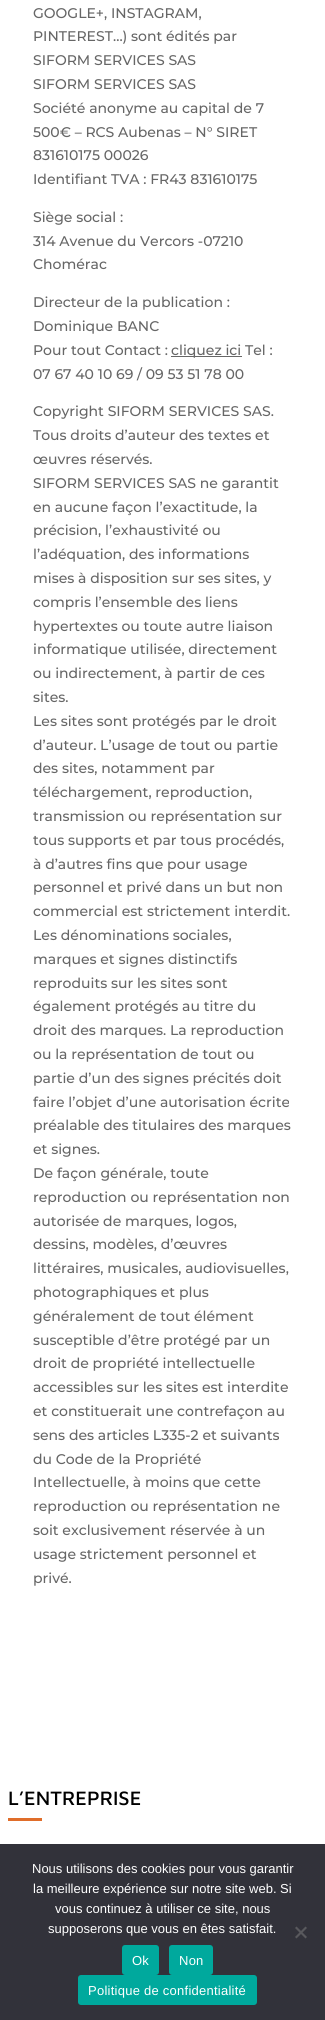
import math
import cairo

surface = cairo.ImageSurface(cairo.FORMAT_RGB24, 325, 2020)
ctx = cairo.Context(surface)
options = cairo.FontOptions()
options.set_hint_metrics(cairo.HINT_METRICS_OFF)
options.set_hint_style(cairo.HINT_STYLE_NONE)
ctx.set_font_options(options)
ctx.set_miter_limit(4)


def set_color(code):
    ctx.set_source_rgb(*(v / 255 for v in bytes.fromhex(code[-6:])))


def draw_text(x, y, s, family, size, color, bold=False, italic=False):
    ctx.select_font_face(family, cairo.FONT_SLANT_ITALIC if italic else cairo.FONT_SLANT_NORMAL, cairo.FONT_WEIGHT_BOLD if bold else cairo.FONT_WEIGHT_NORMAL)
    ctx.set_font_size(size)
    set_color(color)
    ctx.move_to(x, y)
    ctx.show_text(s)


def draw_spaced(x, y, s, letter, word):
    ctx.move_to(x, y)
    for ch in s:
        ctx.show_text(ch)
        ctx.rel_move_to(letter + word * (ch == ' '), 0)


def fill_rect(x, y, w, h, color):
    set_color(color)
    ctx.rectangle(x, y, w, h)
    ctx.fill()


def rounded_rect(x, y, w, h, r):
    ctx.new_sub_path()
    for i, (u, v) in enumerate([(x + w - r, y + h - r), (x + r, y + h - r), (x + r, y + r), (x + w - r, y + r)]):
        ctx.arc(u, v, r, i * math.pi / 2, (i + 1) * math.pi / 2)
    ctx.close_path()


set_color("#ffffff")
ctx.paint()
draw_text(33, 18, "GOOGLE+, INSTAGRAM,", "Montserrat Medium", 14, "#666666")
draw_text(33, 41, "PINTEREST…) sont édités par", "Montserrat Medium", 14, "#666666")
draw_text(33, 65, "SIFORM SERVICES SAS", "Montserrat Medium", 14, "#666666")
draw_text(33, 89, "SIFORM SERVICES SAS", "Montserrat Medium", 14, "#666666")
draw_text(33, 113, "Société anonyme au capital de 7", "Montserrat Medium", 14, "#666666")
draw_text(33, 137, "500€ – RCS Aubenas – N° SIRET", "Montserrat Medium", 14, "#666666")
draw_text(33, 160, "831610175 00026", "Montserrat Medium", 14, "#666666")
draw_text(33, 184, "Identifiant TVA : FR43 831610175", "Montserrat Medium", 14, "#666666")
draw_text(33, 222, "Siège social :", "Montserrat Medium", 14, "#666666")
draw_text(33, 246, "314 Avenue du Vercors -07210", "Montserrat Medium", 14, "#666666")
draw_text(33, 269, "Chomérac", "Montserrat Medium", 14, "#666666")
draw_text(33, 307, "Directeur de la publication :", "Montserrat Medium", 14, "#666666")
draw_text(33, 331, "Dominique BANC", "Montserrat Medium", 14, "#666666")
draw_text(33, 355, "Pour tout Contact :", "Montserrat Medium", 14, "#666666")
fill_rect(171, 356, 71, 1, "#666666")
draw_text(171, 355, "cliquez ici Tel :", "Montserrat Medium", 14, "#666666")
draw_text(33, 379, "07 67 40 10 69 / 09 53 51 78 00", "Montserrat Medium", 14, "#666666")
draw_text(33, 416, "Copyright SIFORM SERVICES SAS.", "Montserrat Medium", 14, "#666666")
draw_text(33, 440, "Tous droits d’auteur des textes et", "Montserrat Medium", 14, "#666666")
draw_text(33, 464, "œuvres réservés.", "Montserrat Medium", 14, "#666666")
draw_text(33, 488, "SIFORM SERVICES SAS ne garantit", "Montserrat Medium", 14, "#666666")
draw_text(33, 512, "en aucune façon l’exactitude, la", "Montserrat Medium", 14, "#666666")
draw_text(33, 535, "précision, l’exhaustivité ou", "Montserrat Medium", 14, "#666666")
draw_text(33, 559, "l’adéquation, des informations", "Montserrat Medium", 14, "#666666")
draw_text(33, 583, "mises à disposition sur ses sites, y", "Montserrat Medium", 14, "#666666")
draw_text(33, 607, "compris l’ensemble des liens", "Montserrat Medium", 14, "#666666")
draw_text(33, 631, "hypertextes ou toute autre liaison", "Montserrat Medium", 14, "#666666")
draw_text(33, 654, "informatique utilisée, directement", "Montserrat Medium", 14, "#666666")
draw_text(33, 678, "ou indirectement, à partir de ces", "Montserrat Medium", 14, "#666666")
draw_text(33, 702, "sites.", "Montserrat Medium", 14, "#666666")
draw_text(33, 726, "Les sites sont protégés par le droit", "Montserrat Medium", 14, "#666666")
draw_text(33, 750, "d’auteur. L’usage de tout ou partie", "Montserrat Medium", 14, "#666666")
draw_text(33, 773, "des sites, notamment par", "Montserrat Medium", 14, "#666666")
draw_text(33, 797, "téléchargement, reproduction,", "Montserrat Medium", 14, "#666666")
draw_text(33, 821, "transmission ou représentation sur", "Montserrat Medium", 14, "#666666")
draw_text(33, 845, "tous supports et par tous procédés,", "Montserrat Medium", 14, "#666666")
draw_text(33, 869, "à d’autres fins que pour usage", "Montserrat Medium", 14, "#666666")
draw_text(33, 892, "personnel et privé dans un but non", "Montserrat Medium", 14, "#666666")
draw_text(33, 916, "commercial est strictement interdit.", "Montserrat Medium", 14, "#666666")
draw_text(33, 940, "Les dénominations sociales,", "Montserrat Medium", 14, "#666666")
draw_text(33, 964, "marques et signes distinctifs", "Montserrat Medium", 14, "#666666")
draw_text(33, 988, "reproduits sur les sites sont", "Montserrat Medium", 14, "#666666")
draw_text(33, 1011, "également protégés au titre du", "Montserrat Medium", 14, "#666666")
draw_text(33, 1035, "droit des marques. La reproduction", "Montserrat Medium", 14, "#666666")
draw_text(33, 1059, "ou la représentation de tout ou", "Montserrat Medium", 14, "#666666")
draw_text(33, 1083, "partie d’un des signes précités doit", "Montserrat Medium", 14, "#666666")
draw_text(33, 1107, "faire l’objet d’une autorisation écrite", "Montserrat Medium", 14, "#666666")
draw_text(33, 1130, "préalable des titulaires des marques", "Montserrat Medium", 14, "#666666")
draw_text(33, 1154, "et signes.", "Montserrat Medium", 14, "#666666")
draw_text(33, 1178, "De façon générale, toute", "Montserrat Medium", 14, "#666666")
draw_text(33, 1202, "reproduction ou représentation non", "Montserrat Medium", 14, "#666666")
draw_text(33, 1226, "autorisée de marques, logos,", "Montserrat Medium", 14, "#666666")
draw_text(33, 1249, "dessins, modèles, d’œuvres", "Montserrat Medium", 14, "#666666")
draw_text(33, 1273, "littéraires, musicales, audiovisuelles,", "Montserrat Medium", 14, "#666666")
draw_text(33, 1297, "photographiques et plus", "Montserrat Medium", 14, "#666666")
draw_text(33, 1321, "généralement de tout élément", "Montserrat Medium", 14, "#666666")
draw_text(33, 1345, "susceptible d’être protégé par un", "Montserrat Medium", 14, "#666666")
draw_text(33, 1368, "droit de propriété intellectuelle", "Montserrat Medium", 14, "#666666")
draw_text(33, 1392, "accessibles sur les sites est interdite", "Montserrat Medium", 14, "#666666")
draw_text(33, 1416, "et constituerait une contrefaçon au", "Montserrat Medium", 14, "#666666")
draw_text(33, 1440, "sens des articles L335-2 et suivants", "Montserrat Medium", 14, "#666666")
draw_text(33, 1464, "du Code de la Propriété", "Montserrat Medium", 14, "#666666")
draw_text(33, 1487, "Intellectuelle, à moins que cette", "Montserrat Medium", 14, "#666666")
draw_text(33, 1511, "reproduction ou représentation ne", "Montserrat Medium", 14, "#666666")
draw_text(33, 1535, "soit exclusivement réservée à un", "Montserrat Medium", 14, "#666666")
draw_text(33, 1559, "usage strictement personnel et", "Montserrat Medium", 14, "#666666")
draw_text(33, 1583, "privé.", "Montserrat Medium", 14, "#666666")
draw_text(8, 1805, "L’ENTREPRISE", "Maven Pro Medium", 20, "#000000")
fill_rect(8, 1818, 34, 3, "#e06d2a")
fill_rect(0, 1844, 325, 176, "#32323a")
draw_text(32, 1873, "Nous utilisons des cookies pour vous garantir", "Liberation Sans", 13, "#ffffff")
draw_text(33, 1893, "la meilleure expérience sur notre site web. Si", "Liberation Sans", 13, "#ffffff")
draw_text(55, 1913, "vous continuez à utiliser ce site, nous", "Liberation Sans", 13, "#ffffff")
draw_text(48, 1933, "supposerons que vous en êtes satisfait.", "Liberation Sans", 13, "#ffffff")
set_color("#59595d")
ctx.new_path()
ctx.move_to(305.5, 1926.5)
ctx.line_to(307, 1928)
ctx.line_to(296.5, 1938.5)
ctx.line_to(295, 1937)
ctx.close_path()
ctx.fill()
ctx.new_path()
ctx.move_to(295, 1928)
ctx.line_to(296.5, 1926.5)
ctx.line_to(307, 1937)
ctx.line_to(305.5, 1938.5)
ctx.close_path()
ctx.fill()
set_color("#00a99d")
rounded_rect(122, 1945, 37, 30, 3)
ctx.fill()
set_color("#ffffff")
draw_spaced(132, 1965, "Ok", 0.25, 0)
set_color("#00a99d")
rounded_rect(169, 1945, 44, 30, 3)
ctx.fill()
set_color("#ffffff")
draw_spaced(179, 1965, "Non", 0.25, 0)
set_color("#00a99d")
rounded_rect(78, 1975, 179, 30, 3)
ctx.fill()
set_color("#ffffff")
draw_spaced(88, 1995, "Politique de confidentialité", 0.25, 0)
surface.write_to_png("output.png")
